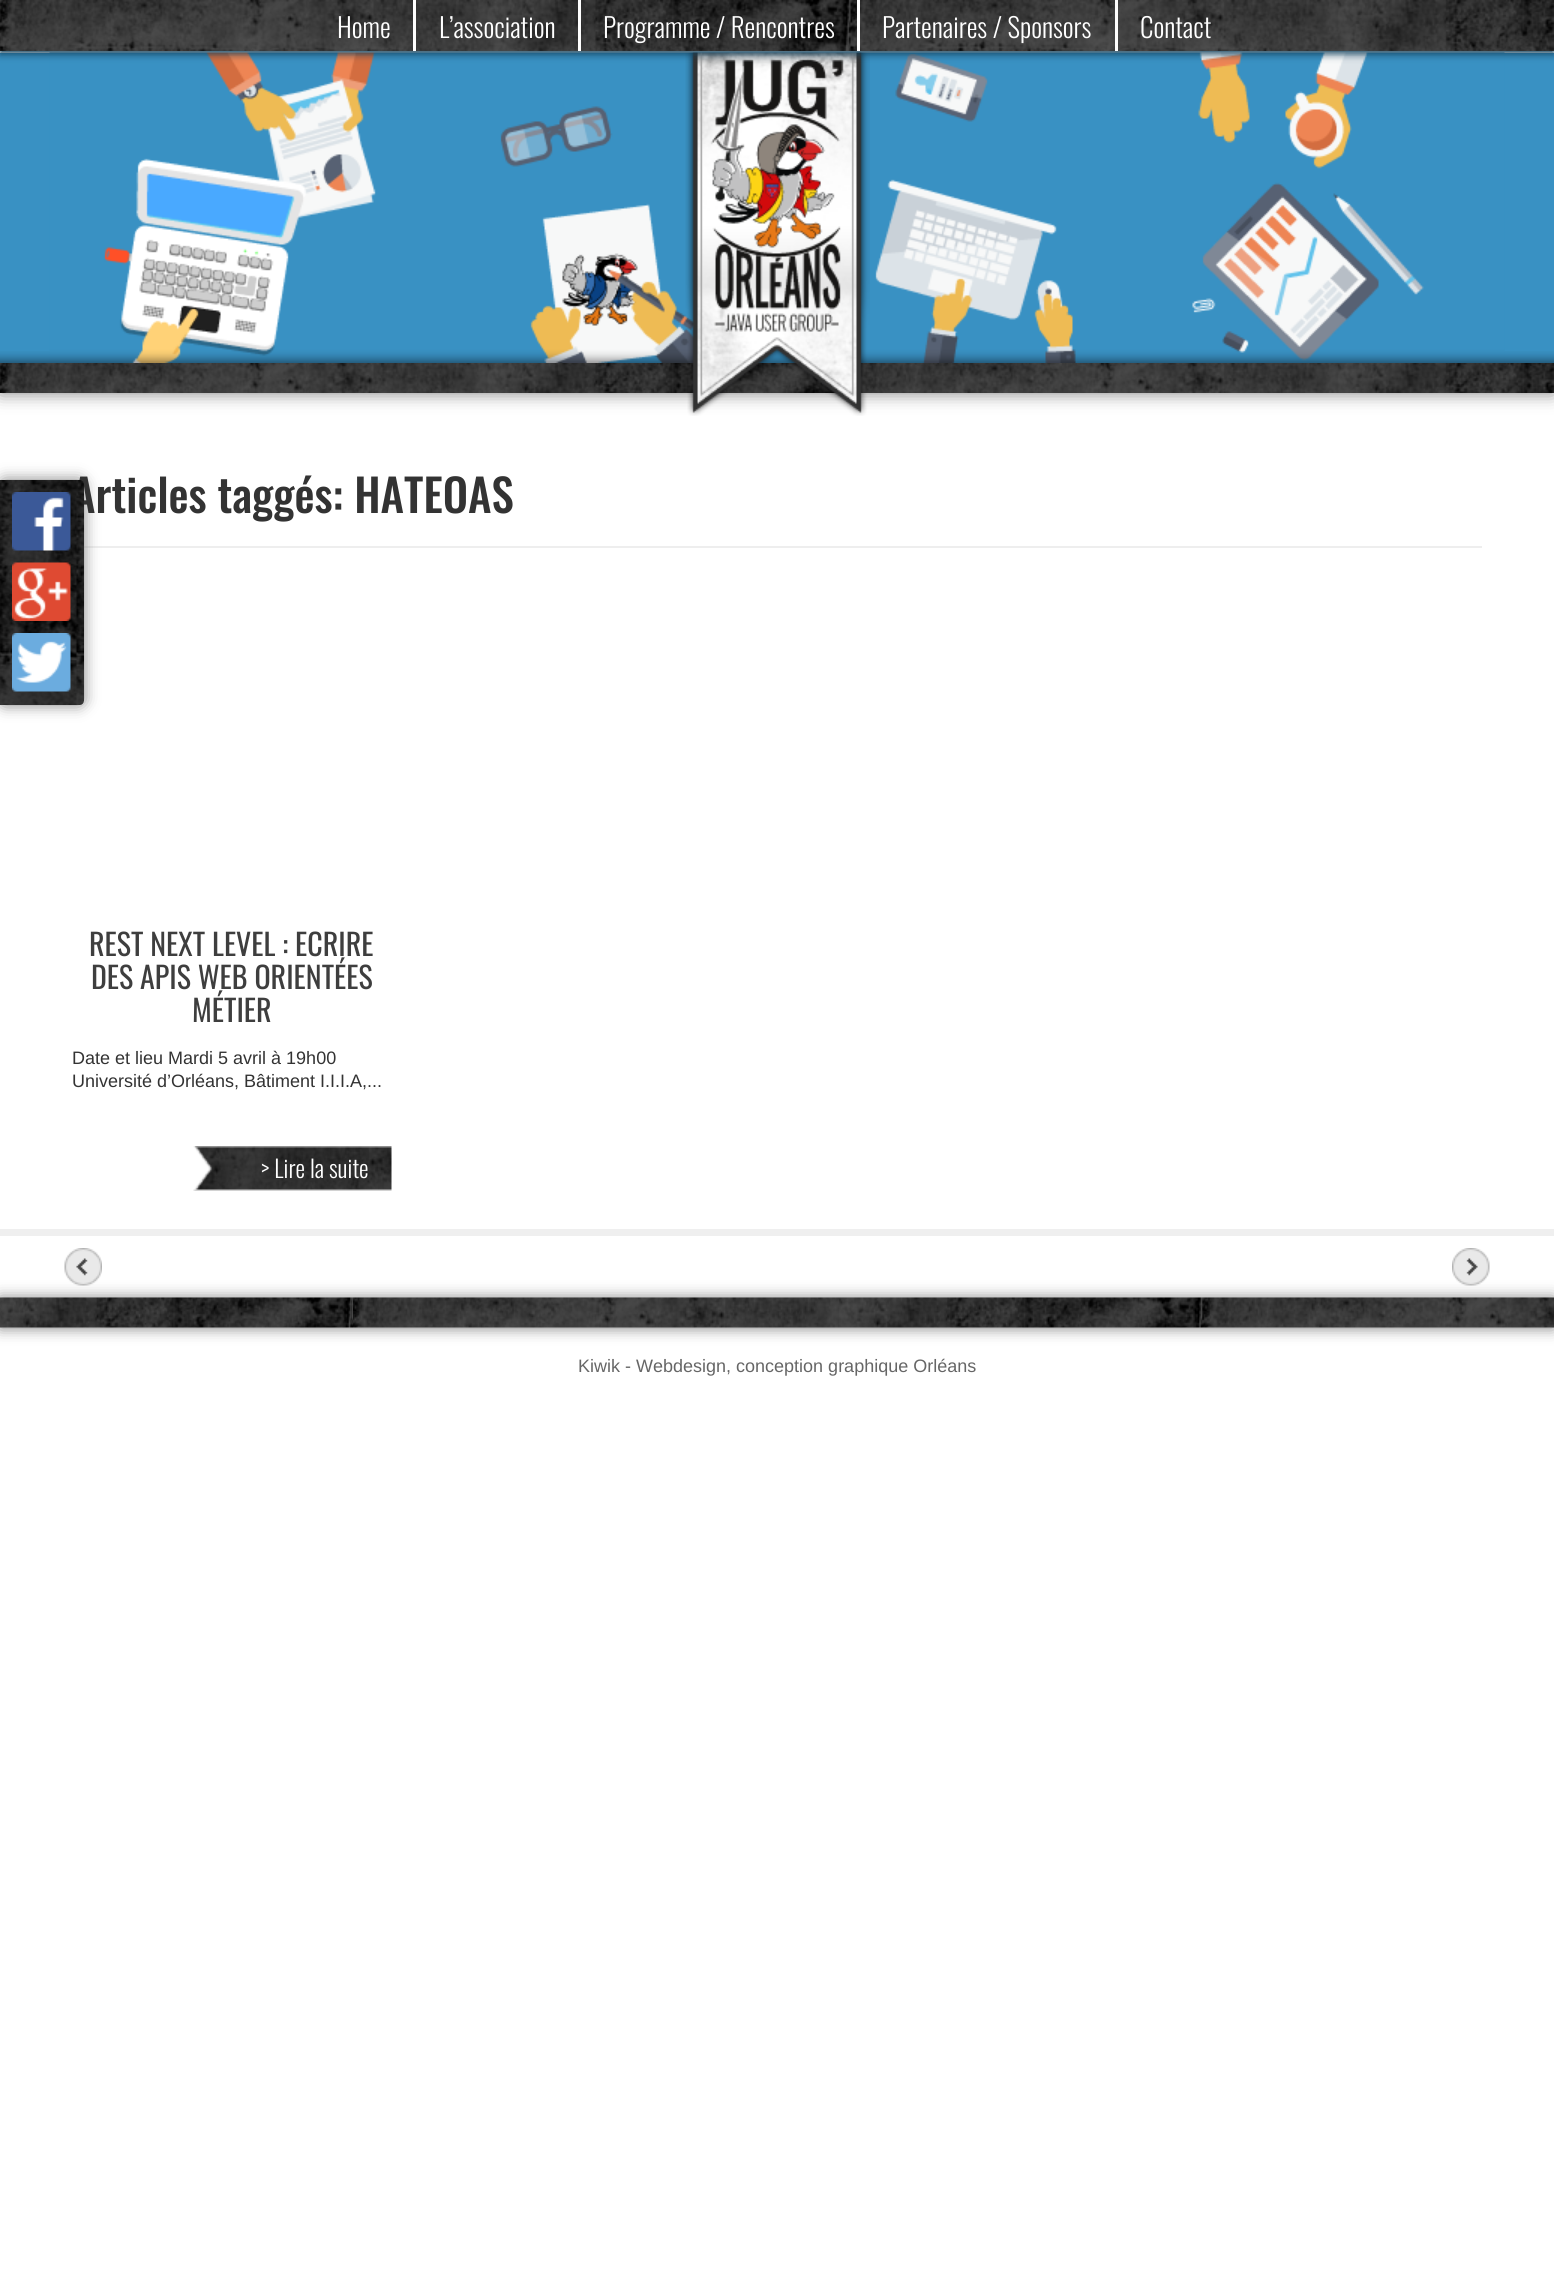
import math
import cairo

surface = cairo.ImageSurface(cairo.FORMAT_RGB24, 1554, 2282)
ctx = cairo.Context(surface)
options = cairo.FontOptions()
options.set_hint_metrics(cairo.HINT_METRICS_OFF)
options.set_hint_style(cairo.HINT_STYLE_NONE)
ctx.set_font_options(options)
ctx.set_miter_limit(4)


def set_color(code):
    ctx.set_source_rgb(*(v / 255 for v in bytes.fromhex(code[-6:])))


def draw_text(x, y, s, family, size, color, bold=False, italic=False):
    ctx.select_font_face(family, cairo.FONT_SLANT_ITALIC if italic else cairo.FONT_SLANT_NORMAL, cairo.FONT_WEIGHT_BOLD if bold else cairo.FONT_WEIGHT_NORMAL)
    ctx.set_font_size(size)
    set_color(color)
    ctx.move_to(x, y)
    ctx.show_text(s)


def fill_rect(x, y, w, h, color):
    set_color(color)
    ctx.rectangle(x, y, w, h)
    ctx.fill()


def rounded_rect(x, y, w, h, r):
    ctx.new_sub_path()
    for i, (u, v) in enumerate([(x + w - r, y + h - r), (x + r, y + h - r), (x + r, y + r), (x + w - r, y + r)]):
        ctx.arc(u, v, r, i * math.pi / 2, (i + 1) * math.pi / 2)
    ctx.close_path()


def draw_shadow(x, y, w, h, r, blur, alpha):
    ctx.push_group_with_content(cairo.CONTENT_ALPHA)
    ctx.set_operator(cairo.OPERATOR_SOURCE)
    for i in range(15, -16, -2):
        e = blur * i / 6
        if min(w, h) + 2 * e > 0:
            ctx.set_source_rgba(0, 0, 0, alpha * math.erfc((i - 1) / 8.5) / 2)
            rounded_rect(x - e, y - e, w + 2 * e, h + 2 * e, max(0, min(r + e + blur * .6, min(w, h) / 2 + e)))
            ctx.fill()
    ctx.mask(ctx.pop_group())


def draw_image(path, x, y, w, h):
    ctx.save()
    ctx.set_source_surface(cairo.ImageSurface.create_from_png(path), x, y)
    ctx.rectangle(x, y, w, h)
    ctx.fill()
    ctx.restore()


set_color("#ffffff")
ctx.paint()
set_color("#808080")
draw_shadow(0, 363, 1554, 30, 0, 9, 1)
fill_rect(0, 53, 1554, 298, "#3991c3")
draw_image("assets/img2.png", 0, 351, 1554, 12)
draw_image("assets/img3.png", 49, 52, 1456, 311)
draw_image("assets/img5.png", 0, 363, 1554, 30)
draw_image("assets/img4.png", 685, 52, 185, 364)
set_color("#13415c")
draw_shadow(0, 3, 1554, 51, 0, 4, 1)
draw_image("assets/img1.png", 0, 0, 1554, 51)
fill_rect(413, 0, 3, 51, "#ffffff")
draw_text(337, 38, "Home", "Oswald Light", 27, "#ffffff")
fill_rect(578, 0, 3, 51, "#ffffff")
draw_text(439, 38, "L’association", "Oswald Light", 27, "#ffffff")
fill_rect(857, 0, 3, 51, "#ffffff")
draw_text(603, 38, "Programme / Rencontres", "Oswald Light", 27, "#ffffff")
fill_rect(1115, 0, 3, 51, "#ffffff")
draw_text(882, 38, "Partenaires / Sponsors", "Oswald Light", 27, "#ffffff")
draw_text(1140, 38, "Contact", "Oswald Light", 27, "#ffffff")
fill_rect(84, 546, 1398, 2, "#eeeeee")
set_color("#808080")
draw_shadow(0, 480, 84, 225, 5, 7.5, 1)
draw_text(72, 513, "Articles taggés: HATEOAS", "Oswald Medium", 45, "#333333")
draw_image("assets/img6.png", 0, 480, 84, 225)
draw_image("assets/img7.png", 12, 492, 59, 59)
draw_image("assets/img8.png", 12, 562, 59, 59)
draw_image("assets/img9.png", 12, 633, 59, 59)
draw_text(89, 956, "REST NEXT LEVEL : ECRIRE", "Oswald", 30, "#3e3e3e")
draw_text(91, 989, "DES APIS WEB ORIENTÉES", "Oswald", 30, "#3e3e3e")
draw_text(192, 1022, "MÉTIER", "Oswald", 30, "#3e3e3e")
draw_text(72, 1064, "Date et lieu Mardi 5 avril à 19h00", "Liberation Sans", 18, "#333333")
draw_text(72, 1087, "Université d’Orléans, Bâtiment I.I.I.A,...", "Liberation Sans", 18, "#333333")
draw_image("assets/img10.png", 193, 1146, 199, 45)
draw_text(261, 1178, "> Lire la suite", "Oswald Light", 24, "#ffffff")
fill_rect(0, 1229, 1554, 7, "#efefef")
set_color("#808080")
draw_shadow(0, 1298, 1554, 30, 0, 7.5, 1)
draw_image("assets/img11.png", 64, 1248, 38, 38)
draw_image("assets/img12.png", 1452, 1248, 38, 38)
draw_image("assets/img13.png", 0, 1297, 1554, 31)
draw_text(578, 1372, "Kiwik - Webdesign, conception graphique Orléans", "Liberation Sans", 18, "#666666")
surface.write_to_png("output.png")
